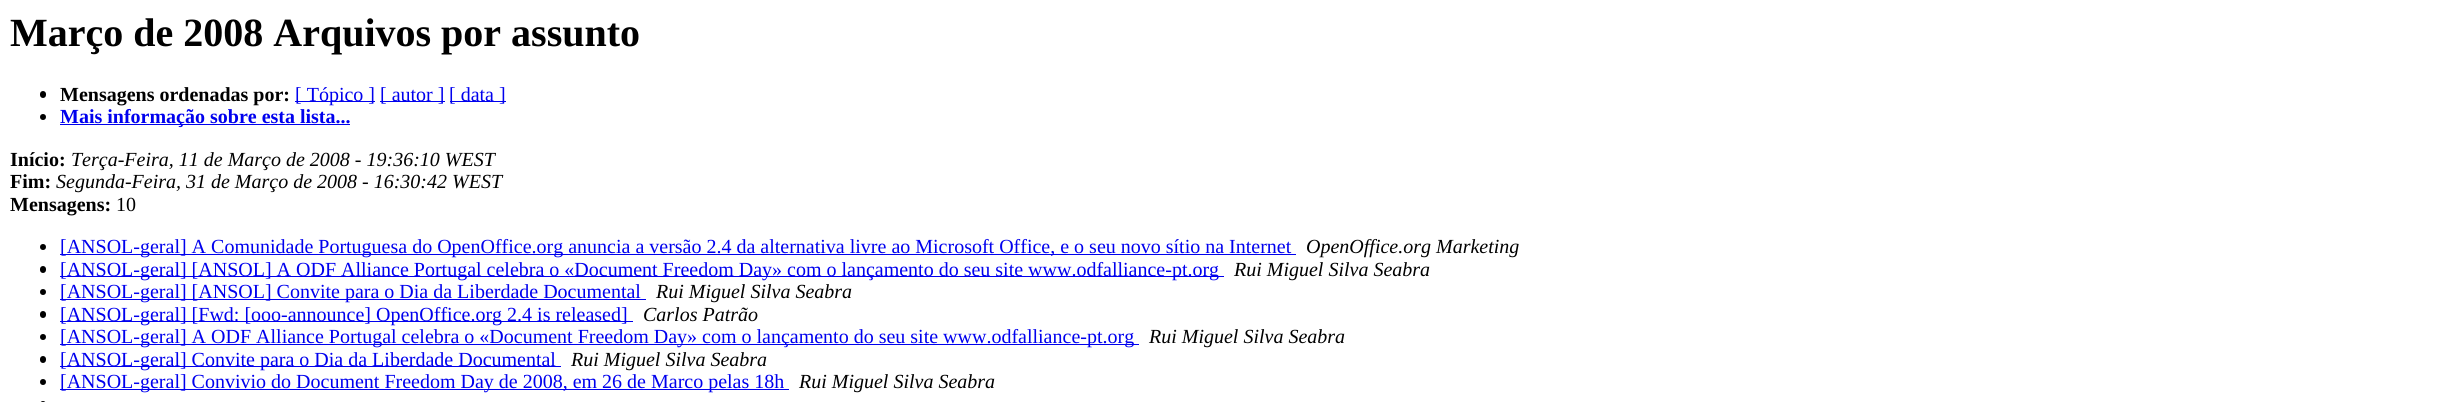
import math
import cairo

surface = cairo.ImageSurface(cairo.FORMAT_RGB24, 2456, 402)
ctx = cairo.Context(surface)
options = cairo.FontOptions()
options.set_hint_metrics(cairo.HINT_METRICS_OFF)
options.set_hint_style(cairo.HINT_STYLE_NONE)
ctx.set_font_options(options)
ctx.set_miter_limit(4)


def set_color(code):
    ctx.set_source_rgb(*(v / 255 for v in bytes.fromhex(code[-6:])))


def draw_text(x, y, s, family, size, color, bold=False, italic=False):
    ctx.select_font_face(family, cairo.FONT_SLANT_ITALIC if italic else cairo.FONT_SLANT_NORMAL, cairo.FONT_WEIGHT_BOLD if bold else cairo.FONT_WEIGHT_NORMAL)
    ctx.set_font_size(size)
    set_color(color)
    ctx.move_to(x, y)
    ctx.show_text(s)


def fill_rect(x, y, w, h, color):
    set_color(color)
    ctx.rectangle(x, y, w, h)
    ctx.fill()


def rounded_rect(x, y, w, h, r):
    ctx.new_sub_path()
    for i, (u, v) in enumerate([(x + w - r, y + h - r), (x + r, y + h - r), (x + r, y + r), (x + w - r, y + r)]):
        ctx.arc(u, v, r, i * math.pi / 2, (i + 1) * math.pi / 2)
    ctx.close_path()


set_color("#ffffff")
ctx.paint()
draw_text(10, 46, "Março de 2008 Arquivos por assunto", "Liberation Serif", 40, "#000000", bold=True)
rounded_rect(40, 91, 6, 7, 3)
ctx.fill()
draw_text(60, 101, "Mensagens ordenadas por:", "Liberation Serif", 20, "#000000", bold=True)
fill_rect(295, 101, 80, 1, "#0000ee")
draw_text(295, 101, "[ Tópico ]", "Liberation Serif", 20, "#0000ee")
fill_rect(380, 101, 65, 1, "#0000ee")
draw_text(380, 101, "[ autor ]", "Liberation Serif", 20, "#0000ee")
fill_rect(450, 101, 56, 1, "#0000ee")
draw_text(449, 101, "[ data ]", "Liberation Serif", 20, "#0000ee")
set_color("#000000")
ctx.new_path()
ctx.arc(43, 117, 3, 0, 2 * math.pi)
ctx.fill()
fill_rect(60, 124, 290, 1, "#0000ee")
draw_text(60, 123, "Mais informação sobre esta lista...", "Liberation Serif", 20, "#0000ee", bold=True)
draw_text(10, 166, "Início:", "Liberation Serif", 20, "#000000", bold=True)
draw_text(71, 166, "Terça-Feira, 11 de Março de 2008 - 19:36:10 WEST", "Liberation Serif", 20, "#000000", italic=True)
draw_text(10, 188, "Fim:", "Liberation Serif", 20, "#000000", bold=True)
draw_text(56, 188, "Segunda-Feira, 31 de Março de 2008 - 16:30:42 WEST", "Liberation Serif", 20, "#000000", italic=True)
draw_text(10, 211, "Mensagens:", "Liberation Serif", 20, "#000000", bold=True)
draw_text(116, 211, "10", "Liberation Serif", 20, "#000000")
ctx.new_path()
ctx.arc(43, 247, 3, 0, 2 * math.pi)
ctx.fill()
fill_rect(60, 254, 1236, 1, "#0000ee")
draw_text(60, 253, "[ANSOL-geral] A Comunidade Portuguesa do OpenOffice.org anuncia a versão 2.4 da alternativa livre ao Microsoft Office, e o seu novo sítio na Internet", "Liberation Serif", 20, "#0000ee")
draw_text(1306, 253, "OpenOffice.org Marketing", "Liberation Serif", 20, "#000000", italic=True)
rounded_rect(40, 266, 6, 7, 3)
ctx.fill()
fill_rect(60, 276, 1164, 1, "#0000ee")
draw_text(60, 276, "[ANSOL-geral] [ANSOL] A ODF Alliance Portugal celebra o «Document Freedom Day» com o lançamento do seu site www.odfalliance-pt.org", "Liberation Serif", 20, "#0000ee")
draw_text(1234, 276, "Rui Miguel Silva Seabra", "Liberation Serif", 20, "#000000", italic=True)
ctx.new_path()
ctx.arc(43, 292, 3, 0, 2 * math.pi)
ctx.fill()
fill_rect(60, 299, 586, 1, "#0000ee")
draw_text(60, 298, "[ANSOL-geral] [ANSOL] Convite para o Dia da Liberdade Documental", "Liberation Serif", 20, "#0000ee")
draw_text(656, 298, "Rui Miguel Silva Seabra", "Liberation Serif", 20, "#000000", italic=True)
rounded_rect(40, 311, 6, 7, 3)
ctx.fill()
fill_rect(60, 321, 573, 1, "#0000ee")
draw_text(60, 321, "[ANSOL-geral] [Fwd: [ooo-announce] OpenOffice.org 2.4 is released]", "Liberation Serif", 20, "#0000ee")
draw_text(643, 321, "Carlos Patrão", "Liberation Serif", 20, "#000000", italic=True)
ctx.new_path()
ctx.arc(43, 337, 3, 0, 2 * math.pi)
ctx.fill()
fill_rect(60, 344, 1079, 1, "#0000ee")
draw_text(60, 343, "[ANSOL-geral] A ODF Alliance Portugal celebra o «Document Freedom Day» com o lançamento do seu site www.odfalliance-pt.org", "Liberation Serif", 20, "#0000ee")
draw_text(1149, 343, "Rui Miguel Silva Seabra", "Liberation Serif", 20, "#000000", italic=True)
rounded_rect(40, 356, 6, 7, 3)
ctx.fill()
fill_rect(60, 366, 501, 1, "#0000ee")
draw_text(60, 366, "[ANSOL-geral] Convite para o Dia da Liberdade Documental", "Liberation Serif", 20, "#0000ee")
draw_text(571, 366, "Rui Miguel Silva Seabra", "Liberation Serif", 20, "#000000", italic=True)
ctx.new_path()
ctx.arc(43, 382, 3, 0, 2 * math.pi)
ctx.fill()
fill_rect(60, 389, 729, 1, "#0000ee")
draw_text(60, 388, "[ANSOL-geral] Convivio do Document Freedom Day de 2008, em 26 de Marco pelas 18h", "Liberation Serif", 20, "#0000ee")
draw_text(799, 388, "Rui Miguel Silva Seabra", "Liberation Serif", 20, "#000000", italic=True)
rounded_rect(40, 401, 6, 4, 3)
ctx.fill()
surface.write_to_png("output.png")
